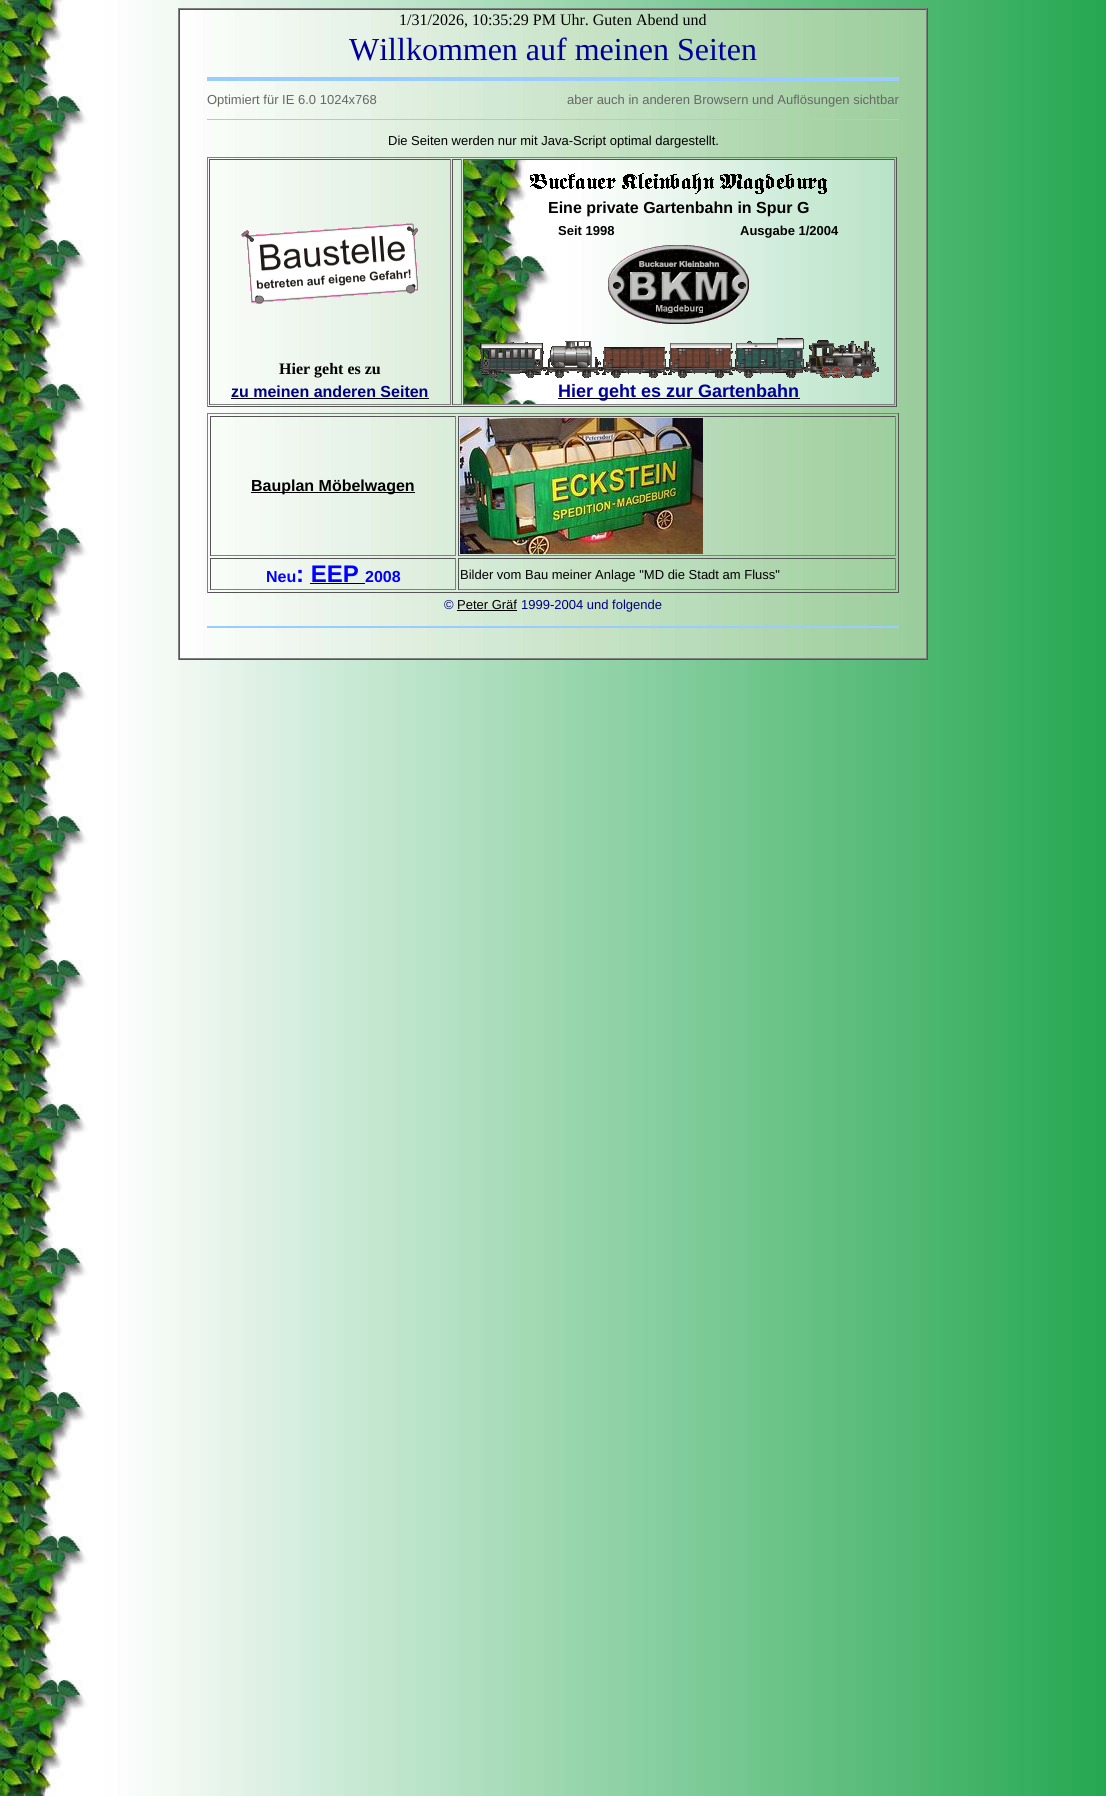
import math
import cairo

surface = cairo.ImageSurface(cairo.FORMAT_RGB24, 1106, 1796)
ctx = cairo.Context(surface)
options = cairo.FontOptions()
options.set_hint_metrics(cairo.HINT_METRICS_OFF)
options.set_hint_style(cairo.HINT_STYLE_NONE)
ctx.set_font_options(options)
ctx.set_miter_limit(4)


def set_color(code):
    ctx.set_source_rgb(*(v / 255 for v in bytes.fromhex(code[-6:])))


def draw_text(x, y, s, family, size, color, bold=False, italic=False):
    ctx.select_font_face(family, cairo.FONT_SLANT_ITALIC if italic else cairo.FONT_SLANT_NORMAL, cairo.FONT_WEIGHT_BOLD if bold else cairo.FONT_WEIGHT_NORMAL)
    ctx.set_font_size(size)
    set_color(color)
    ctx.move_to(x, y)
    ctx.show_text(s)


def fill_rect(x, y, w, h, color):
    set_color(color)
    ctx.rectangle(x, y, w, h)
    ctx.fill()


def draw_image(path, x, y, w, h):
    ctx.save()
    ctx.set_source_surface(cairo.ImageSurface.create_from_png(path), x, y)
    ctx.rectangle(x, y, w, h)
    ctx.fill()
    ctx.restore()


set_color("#ffffff")
ctx.paint()
draw_image("assets/img1.png", 0, 0, 1106, 1796)
draw_image("assets/img2.png", 180, 10, 746, 648)
fill_rect(178, 8, 750, 1, "#808080")
fill_rect(927, 8, 1, 652, "#555555")
fill_rect(178, 659, 750, 1, "#555555")
fill_rect(178, 8, 1, 652, "#808080")
fill_rect(179, 9, 748, 1, "#555555")
fill_rect(926, 9, 1, 650, "#808080")
fill_rect(179, 658, 748, 1, "#808080")
fill_rect(179, 9, 1, 650, "#555555")
draw_text(399, 25, "1/31/2026, 10:35:29 PM Uhr. Guten Abend und", "Liberation Serif", 16, "#000000")
draw_text(349, 60, "Willkommen auf meinen Seiten", "Liberation Serif", 32, "#000099")
fill_rect(207, 77, 692, 4, "#99ccff")
draw_text(207, 104, "Optimiert für IE 6.0 1024x768", "Liberation Sans", 13, "#666666")
draw_text(567, 104, "aber auch in anderen Browsern und Auflösungen sichtbar", "Liberation Sans", 13, "#666666")
fill_rect(207, 119, 692, 1, "#99ccff")
draw_text(388, 145, "Die Seiten werden nur mit Java-Script optimal dargestellt.", "Liberation Sans", 13, "#000000")
fill_rect(207, 157, 690, 1, "#808080")
fill_rect(896, 157, 1, 250, "#555555")
fill_rect(207, 406, 690, 1, "#555555")
fill_rect(207, 157, 1, 250, "#808080")
fill_rect(209, 159, 242, 1, "#555555")
fill_rect(450, 159, 1, 246, "#808080")
fill_rect(209, 404, 242, 1, "#808080")
fill_rect(209, 159, 1, 246, "#555555")
draw_image("assets/img3.png", 241, 223, 177, 81)
draw_text(279, 374, "Hier geht es zu", "Liberation Serif", 16, "#000000", bold=True)
draw_text(231, 397, "zu meinen anderen Seiten", "Liberation Sans", 16, "#000080", bold=True)
fill_rect(231, 398, 198, 1, "#000000")
fill_rect(452, 159, 10, 1, "#555555")
fill_rect(461, 159, 1, 246, "#808080")
fill_rect(452, 404, 10, 1, "#808080")
fill_rect(452, 159, 1, 246, "#555555")
draw_image("assets/img4.png", 464, 160, 430, 244)
fill_rect(463, 159, 432, 1, "#555555")
fill_rect(894, 159, 1, 246, "#808080")
fill_rect(463, 404, 432, 1, "#808080")
fill_rect(463, 159, 1, 246, "#555555")
draw_image("assets/img5.png", 530, 173, 297, 21)
draw_text(548, 213, "Eine private Gartenbahn in Spur G", "Liberation Sans", 16, "#000000", bold=True)
draw_text(558, 235, "Seit 1998", "Liberation Sans", 13, "#000000", bold=True)
draw_text(740, 235, "Ausgabe 1/2004", "Liberation Sans", 13, "#000000", bold=True)
draw_image("assets/img6.png", 608, 245, 141, 79)
draw_image("assets/img7.png", 479, 338, 400, 40)
fill_rect(558, 398, 242, 1, "#000000")
draw_text(558, 397, "Hier geht es zur Gartenbahn", "Liberation Sans", 18, "#000099", bold=True)
fill_rect(207, 413, 692, 1, "#808080")
fill_rect(898, 413, 1, 180, "#555555")
fill_rect(207, 592, 692, 1, "#555555")
fill_rect(207, 413, 1, 180, "#808080")
fill_rect(210, 416, 246, 1, "#555555")
fill_rect(455, 416, 1, 140, "#808080")
fill_rect(210, 555, 246, 1, "#808080")
fill_rect(210, 416, 1, 140, "#555555")
fill_rect(251, 492, 164, 1, "#000000")
draw_text(251, 491, "Bauplan Möbelwagen", "Liberation Sans", 16, "#000000", bold=True)
fill_rect(458, 416, 438, 1, "#555555")
fill_rect(895, 416, 1, 140, "#808080")
fill_rect(458, 555, 438, 1, "#808080")
fill_rect(458, 416, 1, 140, "#555555")
draw_image("assets/img8.png", 460, 418, 243, 136)
fill_rect(210, 558, 246, 1, "#555555")
fill_rect(455, 558, 1, 32, "#808080")
fill_rect(210, 589, 246, 1, "#808080")
fill_rect(210, 558, 1, 32, "#555555")
draw_text(266, 582, "Neu", "Liberation Sans", 16, "#0000ff", bold=True)
draw_text(296, 582, ": EEP", "Liberation Sans", 24, "#0000ff", bold=True)
draw_text(365, 582, "2008", "Liberation Sans", 16, "#0000ff", bold=True)
fill_rect(310, 583, 55, 1, "#000000")
fill_rect(458, 558, 438, 1, "#555555")
fill_rect(895, 558, 1, 32, "#808080")
fill_rect(458, 589, 438, 1, "#808080")
fill_rect(458, 558, 1, 32, "#555555")
draw_text(460, 579, "Bilder vom Bau meiner Anlage \"MD die Stadt am Fluss\"", "Liberation Sans", 13, "#000000")
draw_text(444, 609, "©", "Liberation Sans", 13, "#000080")
draw_text(457, 609, "Peter Gräf", "Liberation Sans", 13, "#000000")
fill_rect(457, 610, 60, 1, "#000000")
draw_text(521, 609, "1999-2004 und folgende", "Liberation Sans", 13, "#000080")
fill_rect(207, 626, 692, 2, "#99ccff")
surface.write_to_png("output.png")
